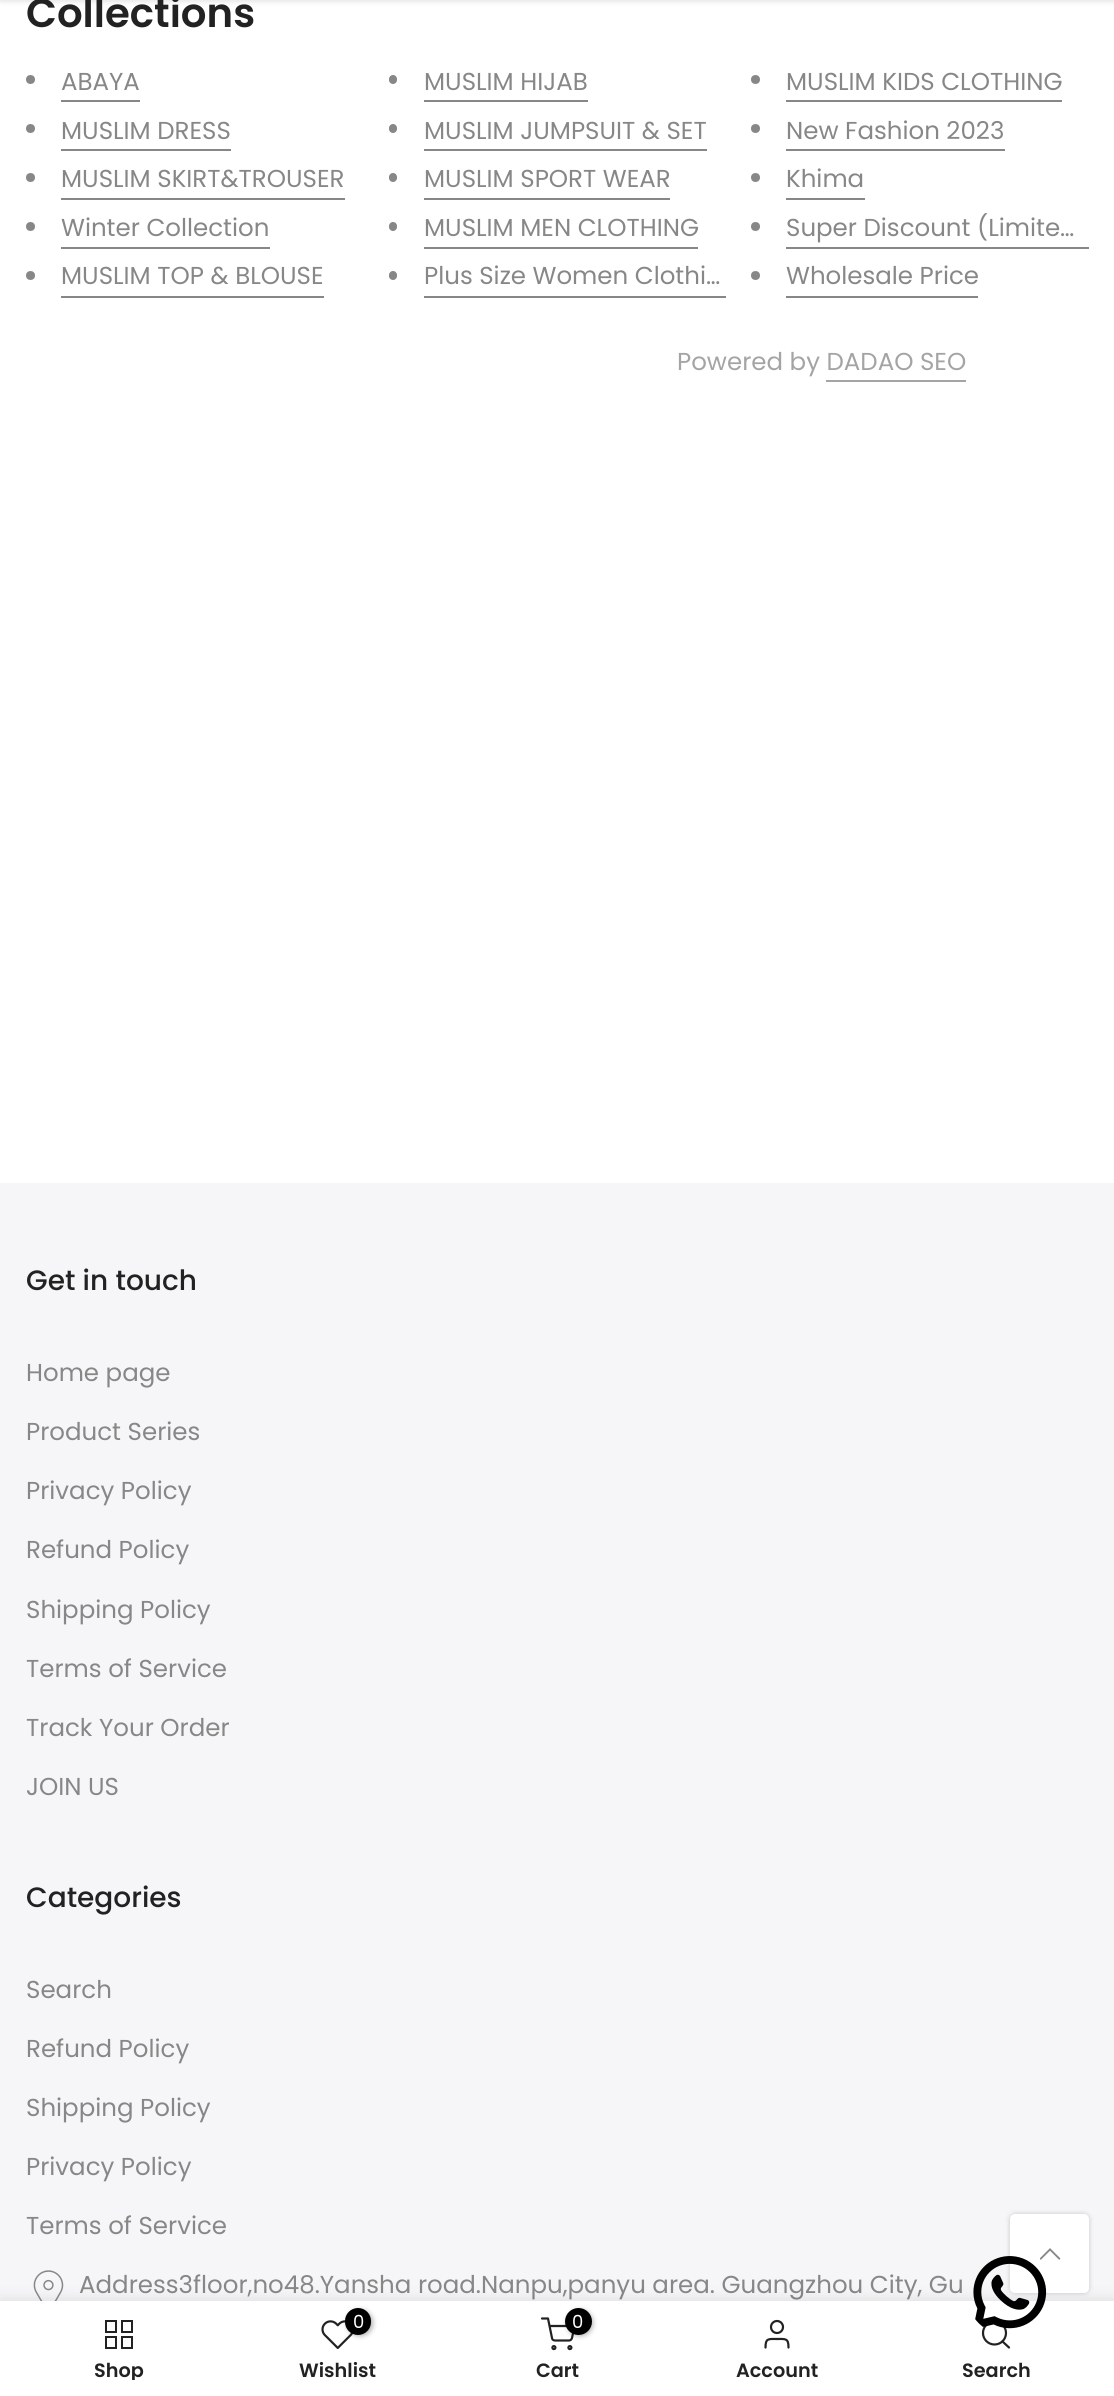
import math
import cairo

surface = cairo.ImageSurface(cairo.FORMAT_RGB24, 1114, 2396)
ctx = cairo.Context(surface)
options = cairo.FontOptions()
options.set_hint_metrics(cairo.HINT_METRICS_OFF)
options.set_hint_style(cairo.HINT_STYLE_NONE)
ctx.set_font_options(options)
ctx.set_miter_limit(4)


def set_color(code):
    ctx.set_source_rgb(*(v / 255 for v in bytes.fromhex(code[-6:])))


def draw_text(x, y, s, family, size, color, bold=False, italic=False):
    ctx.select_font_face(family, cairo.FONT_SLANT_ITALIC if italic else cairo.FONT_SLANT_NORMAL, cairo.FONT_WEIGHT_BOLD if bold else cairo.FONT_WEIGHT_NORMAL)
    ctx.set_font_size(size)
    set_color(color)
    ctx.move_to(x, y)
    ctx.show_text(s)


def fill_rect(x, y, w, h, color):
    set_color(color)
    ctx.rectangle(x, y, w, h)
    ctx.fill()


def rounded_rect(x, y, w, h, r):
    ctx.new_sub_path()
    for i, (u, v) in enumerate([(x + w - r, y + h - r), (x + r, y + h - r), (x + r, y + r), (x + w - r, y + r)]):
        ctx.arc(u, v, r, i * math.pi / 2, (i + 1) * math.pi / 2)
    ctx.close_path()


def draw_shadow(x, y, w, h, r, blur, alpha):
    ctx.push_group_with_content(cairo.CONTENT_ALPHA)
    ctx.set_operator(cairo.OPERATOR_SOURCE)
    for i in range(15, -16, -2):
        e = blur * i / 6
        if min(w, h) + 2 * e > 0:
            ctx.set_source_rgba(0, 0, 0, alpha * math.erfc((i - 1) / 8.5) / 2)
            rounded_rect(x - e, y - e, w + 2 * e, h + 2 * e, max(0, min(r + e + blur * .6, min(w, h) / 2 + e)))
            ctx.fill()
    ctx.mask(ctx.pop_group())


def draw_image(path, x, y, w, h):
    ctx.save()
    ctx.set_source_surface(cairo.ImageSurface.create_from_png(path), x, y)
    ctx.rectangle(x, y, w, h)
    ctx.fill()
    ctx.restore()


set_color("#ffffff")
ctx.paint()
set_color("#000000")
draw_shadow(0, -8, 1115, 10, 0, 2.5, 0.1)
draw_text(26, 27, "Collections", "Poppins SemiBold", 40.25, "#222222")
set_color("#878787")
ctx.new_path()
ctx.arc(30.5, 79.5, 4.5, 0, 2 * math.pi)
ctx.fill()
draw_text(61, 90, "ABAYA", "Poppins", 24.5, "#878787")
fill_rect(61, 100, 79, 2, "#878787")
rounded_rect(389, 75, 8, 9, 4)
ctx.fill()
draw_text(424, 90, "MUSLIM HIJAB", "Poppins", 24.5, "#878787")
fill_rect(424, 100, 164, 2, "#878787")
ctx.new_path()
ctx.arc(755.5, 79.5, 4.5, 0, 2 * math.pi)
ctx.fill()
draw_text(786, 90, "MUSLIM KIDS CLOTHING", "Poppins", 24.5, "#878787")
fill_rect(786, 100, 276, 2, "#878787")
ctx.new_path()
ctx.arc(30.5, 128.5, 4.5, 0, 2 * math.pi)
ctx.fill()
draw_text(61, 139, "MUSLIM DRESS", "Poppins", 24.5, "#878787")
fill_rect(61, 149, 170, 2, "#878787")
rounded_rect(389, 124, 8, 9, 4)
ctx.fill()
draw_text(424, 139, "MUSLIM JUMPSUIT & SET", "Poppins", 24.5, "#878787")
fill_rect(424, 149, 283, 2, "#878787")
ctx.new_path()
ctx.arc(755.5, 128.5, 4.5, 0, 2 * math.pi)
ctx.fill()
draw_text(786, 139, "New Fashion 2023", "Poppins", 24.5, "#878787")
fill_rect(786, 149, 219, 2, "#878787")
ctx.new_path()
ctx.arc(30.5, 177.5, 4.5, 0, 2 * math.pi)
ctx.fill()
draw_text(61, 187, "MUSLIM SKIRT&TROUSER", "Poppins", 24.5, "#878787")
fill_rect(61, 198, 284, 2, "#878787")
rounded_rect(389, 173, 8, 9, 4)
ctx.fill()
draw_text(424, 187, "MUSLIM SPORT WEAR", "Poppins", 24.5, "#878787")
fill_rect(424, 198, 246, 2, "#878787")
ctx.new_path()
ctx.arc(755.5, 177.5, 4.5, 0, 2 * math.pi)
ctx.fill()
draw_text(786, 187, "Khima", "Poppins", 24.5, "#878787")
fill_rect(786, 198, 79, 2, "#878787")
ctx.new_path()
ctx.arc(30.5, 226.5, 4.5, 0, 2 * math.pi)
ctx.fill()
draw_text(61, 236, "Winter Collection", "Poppins", 24.5, "#878787")
fill_rect(61, 247, 209, 2, "#878787")
rounded_rect(389, 222, 8, 9, 4)
ctx.fill()
draw_text(424, 236, "MUSLIM MEN CLOTHING", "Poppins", 24.5, "#878787")
fill_rect(424, 247, 274, 2, "#878787")
ctx.new_path()
ctx.arc(755.5, 226.5, 4.5, 0, 2 * math.pi)
ctx.fill()
draw_text(786, 236, "Super Discount (Limite…", "Poppins", 24.5, "#878787")
fill_rect(786, 247, 303, 2, "#878787")
ctx.new_path()
ctx.arc(30.5, 275.5, 4.5, 0, 2 * math.pi)
ctx.fill()
draw_text(61, 284, "MUSLIM TOP & BLOUSE", "Poppins", 24.5, "#878787")
fill_rect(61, 296, 263, 2, "#878787")
rounded_rect(389, 271, 8, 9, 4)
ctx.fill()
draw_text(424, 284, "Plus Size Women Clothi…", "Poppins", 24.5, "#878787")
fill_rect(424, 296, 302, 2, "#878787")
ctx.new_path()
ctx.arc(755.5, 275.5, 4.5, 0, 2 * math.pi)
ctx.fill()
draw_text(786, 284, "Wholesale Price", "Poppins", 24.5, "#878787")
fill_rect(786, 296, 192, 2, "#878787")
draw_text(677, 370, "Powered by DADAO SEO", "Poppins", 24.5, "#a4a4a4")
fill_rect(826, 380, 140, 2, "#a4a4a4")
fill_rect(0, 1183, 1114, 1118, "#f6f6f8")
draw_text(26, 1290, "Get in touch", "Poppins Medium", 28, "#222222")
draw_text(26, 1381, "Home page", "Poppins", 24.5, "#878787")
draw_text(26, 1440, "Product Series", "Poppins", 24.5, "#878787")
draw_text(26, 1499, "Privacy Policy", "Poppins", 24.5, "#878787")
draw_text(26, 1558, "Refund Policy", "Poppins", 24.5, "#878787")
draw_text(26, 1618, "Shipping Policy", "Poppins", 24.5, "#878787")
draw_text(26, 1677, "Terms of Service", "Poppins", 24.5, "#878787")
draw_text(26, 1736, "Track Your Order", "Poppins", 24.5, "#878787")
draw_text(26, 1795, "JOIN US", "Poppins", 24.5, "#878787")
draw_text(26, 1907, "Categories", "Poppins Medium", 28, "#222222")
draw_text(26, 1998, "Search", "Poppins", 24.5, "#878787")
draw_text(26, 2057, "Refund Policy", "Poppins", 24.5, "#878787")
draw_text(26, 2116, "Shipping Policy", "Poppins", 24.5, "#878787")
draw_text(26, 2175, "Privacy Policy", "Poppins", 24.5, "#878787")
draw_text(26, 2234, "Terms of Service", "Poppins", 24.5, "#878787")
draw_image("assets/img1.png", 33, 2270, 31, 31)
draw_text(79, 2293, "Address3floor,no48.Yansha road.Nanpu,panyu area. Guangzhou City, Gu", "Poppins", 24.5, "#878787")
set_color("#000000")
draw_shadow(0, 2301, 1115, 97, 0, 8, 0.12)
fill_rect(0, 2301, 1114, 95, "#ffffff")
set_color("#000000")
draw_shadow(1010, 2214, 79, 79, 5, 2.5, 0.2)
set_color("#ffffff")
rounded_rect(1010, 2214, 79, 79, 5)
ctx.fill()
draw_image("assets/img2.png", 1040, 2248, 21, 12)
ctx.arc(994.5, 2333, 11.5, 0, 2 * math.pi)
set_color("#222222")
ctx.set_line_width(2.2)
ctx.stroke()
draw_image("assets/img3.png", 973, 2256, 74, 73)
ctx.rectangle(106, 2321, 10, 11)
ctx.set_line_width(2)
ctx.stroke()
ctx.rectangle(122, 2321, 10, 11)
ctx.stroke()
ctx.rectangle(106, 2337, 10, 11)
ctx.stroke()
ctx.rectangle(122, 2337, 10, 11)
ctx.stroke()
ctx.save()
ctx.rectangle(26, 2361, 184, 19)
ctx.clip()
draw_text(94, 2377, "Shop", "Poppins SemiBold", 19.25, "#222222")
ctx.restore()
draw_image("assets/img4.png", 321, 2320, 32, 29)
set_color("#000000")
draw_shadow(347, 2310, 26, 26, 13, 2.5, 0.3)
set_color("#000000")
rounded_rect(345, 2308, 26, 27, 13)
ctx.fill()
draw_text(353, 2328, "0", "Poppins", 18, "#ffffff")
draw_text(299, 2377, "Wishlist", "Poppins SemiBold", 19.25, "#222222")
ctx.new_path()
ctx.move_to(542, 2318.5)
ctx.line_to(548, 2318.5)
ctx.line_to(552, 2338)
ctx.curve_to(552, 2339.5, 553.5, 2340.5, 555, 2340.5)
ctx.line_to(569, 2340.5)
ctx.curve_to(570.5, 2340.5, 571.5, 2339.5, 572, 2338)
ctx.line_to(574.5, 2326)
ctx.line_to(549.5, 2326)
ctx.set_line_width(2.2)
ctx.set_line_cap(cairo.LINE_CAP_ROUND)
ctx.set_line_join(cairo.LINE_JOIN_ROUND)
ctx.stroke()
set_color("#000000")
draw_shadow(567, 2310, 26, 26, 13, 2.5, 0.3)
set_color("#000000")
ctx.arc(578.5, 2321.5, 13.5, 0, 2 * math.pi)
ctx.fill()
draw_text(572, 2328, "0", "Poppins", 18, "#ffffff")
ctx.new_path()
ctx.arc(553.9, 2347.6, 1.5, 0, 2 * math.pi)
set_color("#222222")
ctx.set_line_cap(cairo.LINE_CAP_BUTT)
ctx.set_line_join(cairo.LINE_JOIN_MITER)
ctx.stroke()
ctx.arc(569.9, 2347.6, 1.5, 0, 2 * math.pi)
ctx.stroke()
draw_text(536, 2377, "Cart", "Poppins SemiBold", 19.25, "#222222")
ctx.new_path()
ctx.arc(777, 2327, 6, 0, 2 * math.pi)
ctx.stroke()
ctx.new_path()
ctx.move_to(788.5, 2347.5)
ctx.curve_to(788.5, 2338, 785.5, 2339, 777, 2339)
ctx.curve_to(768.5, 2339, 765.5, 2338, 765.5, 2347.5)
ctx.set_line_cap(cairo.LINE_CAP_ROUND)
ctx.set_line_join(cairo.LINE_JOIN_ROUND)
ctx.stroke()
draw_text(736, 2377, "Account", "Poppins SemiBold", 19.25, "#222222")
ctx.new_path()
ctx.move_to(1009, 2347.5)
ctx.line_to(1002.5, 2341.5)
ctx.stroke()
draw_text(962, 2377, "Search", "Poppins SemiBold", 19.25, "#222222")
surface.write_to_png("output.png")
